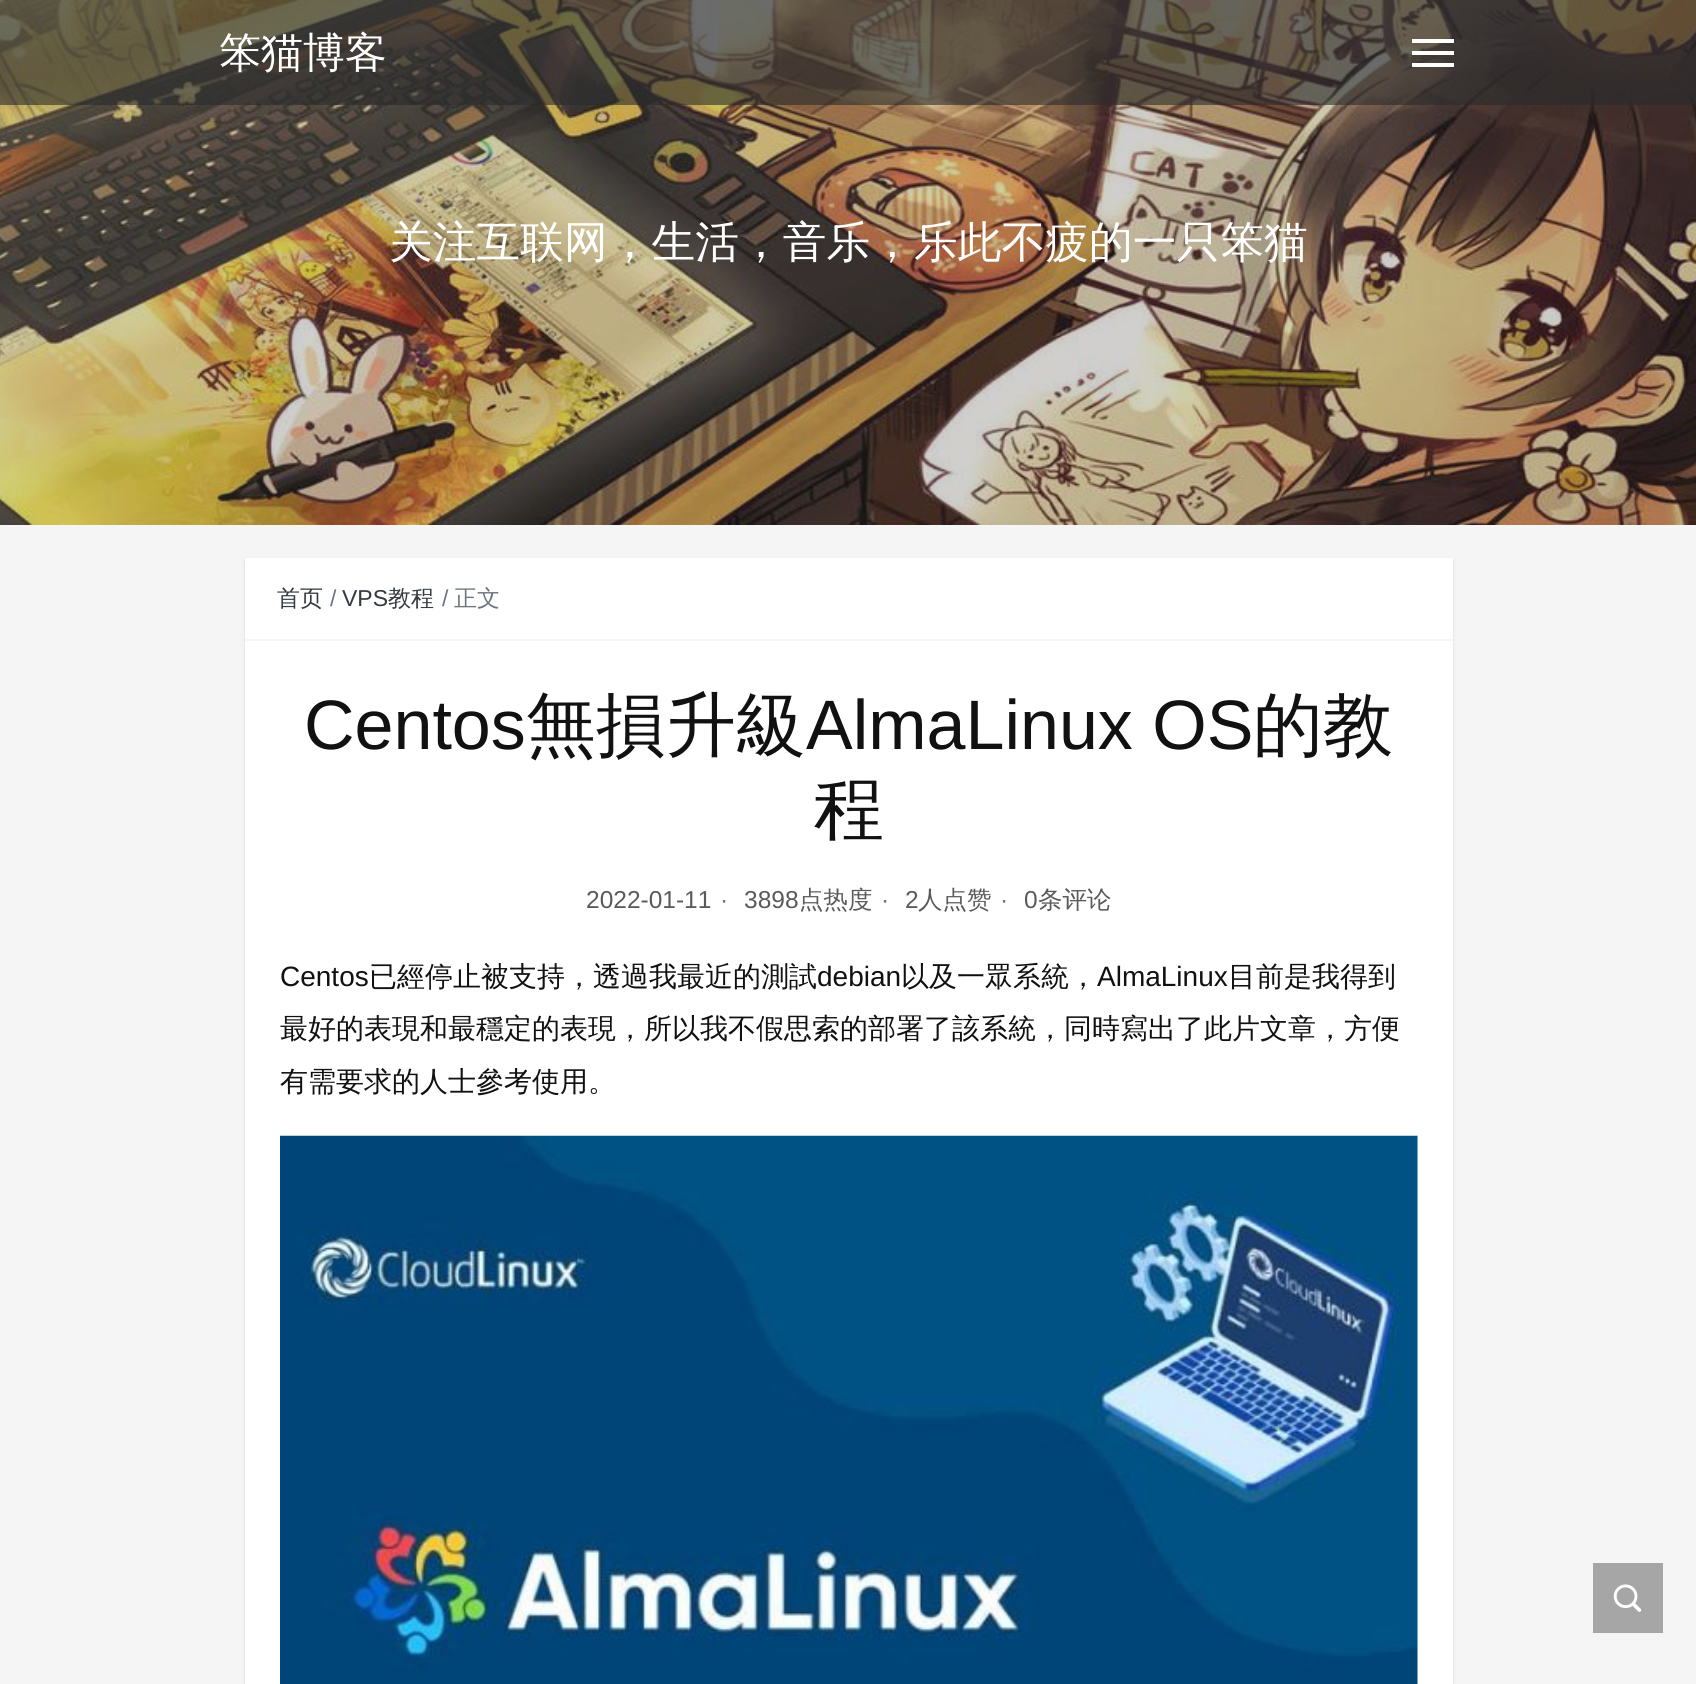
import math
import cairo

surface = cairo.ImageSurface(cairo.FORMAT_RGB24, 1696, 1684)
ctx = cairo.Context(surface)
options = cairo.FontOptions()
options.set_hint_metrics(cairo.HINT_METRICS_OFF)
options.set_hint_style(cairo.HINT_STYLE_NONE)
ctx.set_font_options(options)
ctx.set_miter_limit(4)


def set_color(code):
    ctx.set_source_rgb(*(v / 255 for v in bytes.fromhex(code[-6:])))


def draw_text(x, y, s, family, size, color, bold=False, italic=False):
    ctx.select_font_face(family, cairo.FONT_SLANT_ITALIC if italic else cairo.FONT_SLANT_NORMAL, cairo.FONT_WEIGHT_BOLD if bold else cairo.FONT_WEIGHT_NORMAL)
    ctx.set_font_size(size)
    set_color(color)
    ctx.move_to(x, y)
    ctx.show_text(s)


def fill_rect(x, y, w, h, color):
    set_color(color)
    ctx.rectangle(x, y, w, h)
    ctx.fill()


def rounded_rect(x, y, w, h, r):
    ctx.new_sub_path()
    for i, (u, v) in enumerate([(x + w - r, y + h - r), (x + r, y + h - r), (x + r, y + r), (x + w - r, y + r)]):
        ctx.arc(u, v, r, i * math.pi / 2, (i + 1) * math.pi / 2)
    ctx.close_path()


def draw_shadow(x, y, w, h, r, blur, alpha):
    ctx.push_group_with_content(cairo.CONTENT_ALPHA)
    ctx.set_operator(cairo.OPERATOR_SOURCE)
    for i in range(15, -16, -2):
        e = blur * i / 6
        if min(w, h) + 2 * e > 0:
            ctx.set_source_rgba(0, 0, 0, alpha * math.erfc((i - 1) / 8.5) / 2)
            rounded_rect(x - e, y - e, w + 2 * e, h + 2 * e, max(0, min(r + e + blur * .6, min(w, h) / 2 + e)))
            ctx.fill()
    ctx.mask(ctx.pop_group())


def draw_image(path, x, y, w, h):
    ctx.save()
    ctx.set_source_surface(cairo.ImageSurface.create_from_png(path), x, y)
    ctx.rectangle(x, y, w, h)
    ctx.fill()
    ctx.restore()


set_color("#f5f5f5")
ctx.paint()
draw_image("assets/img1.png", 0, 0, 1696, 525)
ctx.set_source_rgba(0.157, 0.165, 0.173, 0.6)
ctx.rectangle(0, 0, 1696, 105)
ctx.fill()
draw_text(219, 67, "笨猫博客", "WenQuanYi Zen Hei Medium", 42, "#ffffff")
fill_rect(1412, 39, 42, 4, "#ffffff")
fill_rect(1412, 51, 42, 4, "#ffffff")
fill_rect(1412, 63, 42, 4, "#ffffff")
draw_text(389, 257, "关注互联网，生活，音乐，乐此不疲的一只笨猫", "WenQuanYi Zen Hei Medium", 43.75, "#ffffff")
set_color("#000000")
draw_shadow(245, 560, 1208, 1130, 0, 2, 0.1)
fill_rect(245, 558, 1208, 1126, "#ffffff")
fill_rect(245, 639, 1208, 2, "#f7f7f7")
draw_text(277, 606, "首页", "WenQuanYi Zen Hei Medium", 23, "#343a40")
draw_text(330, 606, "/", "Liberation Sans", 23, "#6c757d")
draw_text(342, 606, "VPS", "Liberation Sans", 23, "#343a40")
draw_text(388, 606, "教程", "WenQuanYi Zen Hei Medium", 23, "#343a40")
draw_text(442, 606, "/", "Liberation Sans", 23, "#6c757d")
draw_text(454, 606, "正文", "WenQuanYi Zen Hei Medium", 23, "#6c757d")
draw_text(304, 749, "Centos", "Liberation Sans", 70, "#111111")
draw_text(526, 749, "無損升級", "WenQuanYi Zen Hei Medium", 70, "#111111")
draw_text(806, 749, "AlmaLinux OS", "Liberation Sans", 70, "#111111")
draw_text(1253, 749, "的教", "WenQuanYi Zen Hei Medium", 70, "#111111")
draw_text(814, 833, "程", "WenQuanYi Zen Hei Medium", 70, "#111111")
draw_text(586, 908, "2022-01-11", "Liberation Sans", 24.5, "#5a5a5a")
draw_text(720, 908, "·", "Liberation Sans", 24.5, "#6c757d")
draw_text(744, 908, "3898", "Liberation Sans", 24.5, "#5a5a5a")
draw_text(799, 908, "点热度", "WenQuanYi Zen Hei Medium", 24.5, "#5a5a5a")
draw_text(881, 908, "·", "Liberation Sans", 24.5, "#6c757d")
draw_text(905, 908, "2", "Liberation Sans", 24.5, "#5a5a5a")
draw_text(918, 908, "人点赞", "WenQuanYi Zen Hei Medium", 24.5, "#5a5a5a")
draw_text(1000, 908, "·", "Liberation Sans", 24.5, "#6c757d")
draw_text(1024, 908, "0", "Liberation Sans", 24.5, "#5a5a5a")
draw_text(1038, 908, "条评论", "WenQuanYi Zen Hei Medium", 24.5, "#5a5a5a")
draw_text(280, 986, "Centos", "Liberation Sans", 28, "#111111")
draw_text(369, 986, "已經停止被支持，透過我最近的測試", "WenQuanYi Zen Hei Medium", 28, "#111111")
draw_text(817, 986, "debian", "Liberation Sans", 28, "#111111")
draw_text(901, 986, "以及一眾系統，", "WenQuanYi Zen Hei Medium", 28, "#111111")
draw_text(1097, 986, "AlmaLinux", "Liberation Sans", 28, "#111111")
draw_text(1228, 986, "目前是我得到", "WenQuanYi Zen Hei Medium", 28, "#111111")
draw_text(280, 1038, "最好的表現和最穩定的表現，所以我不假思索的部署了該系統，同時寫出了此片文章，方便", "WenQuanYi Zen Hei Medium", 28, "#111111")
draw_text(280, 1091, "有需要求的人士參考使用。", "WenQuanYi Zen Hei Medium", 28, "#111111")
draw_image("assets/img2.png", 280, 1135, 1138, 549)
fill_rect(1593, 1563, 70, 70, "#a6a6a6")
draw_image("assets/img3.png", 1613, 1584, 29, 28)
surface.write_to_png("output.png")
